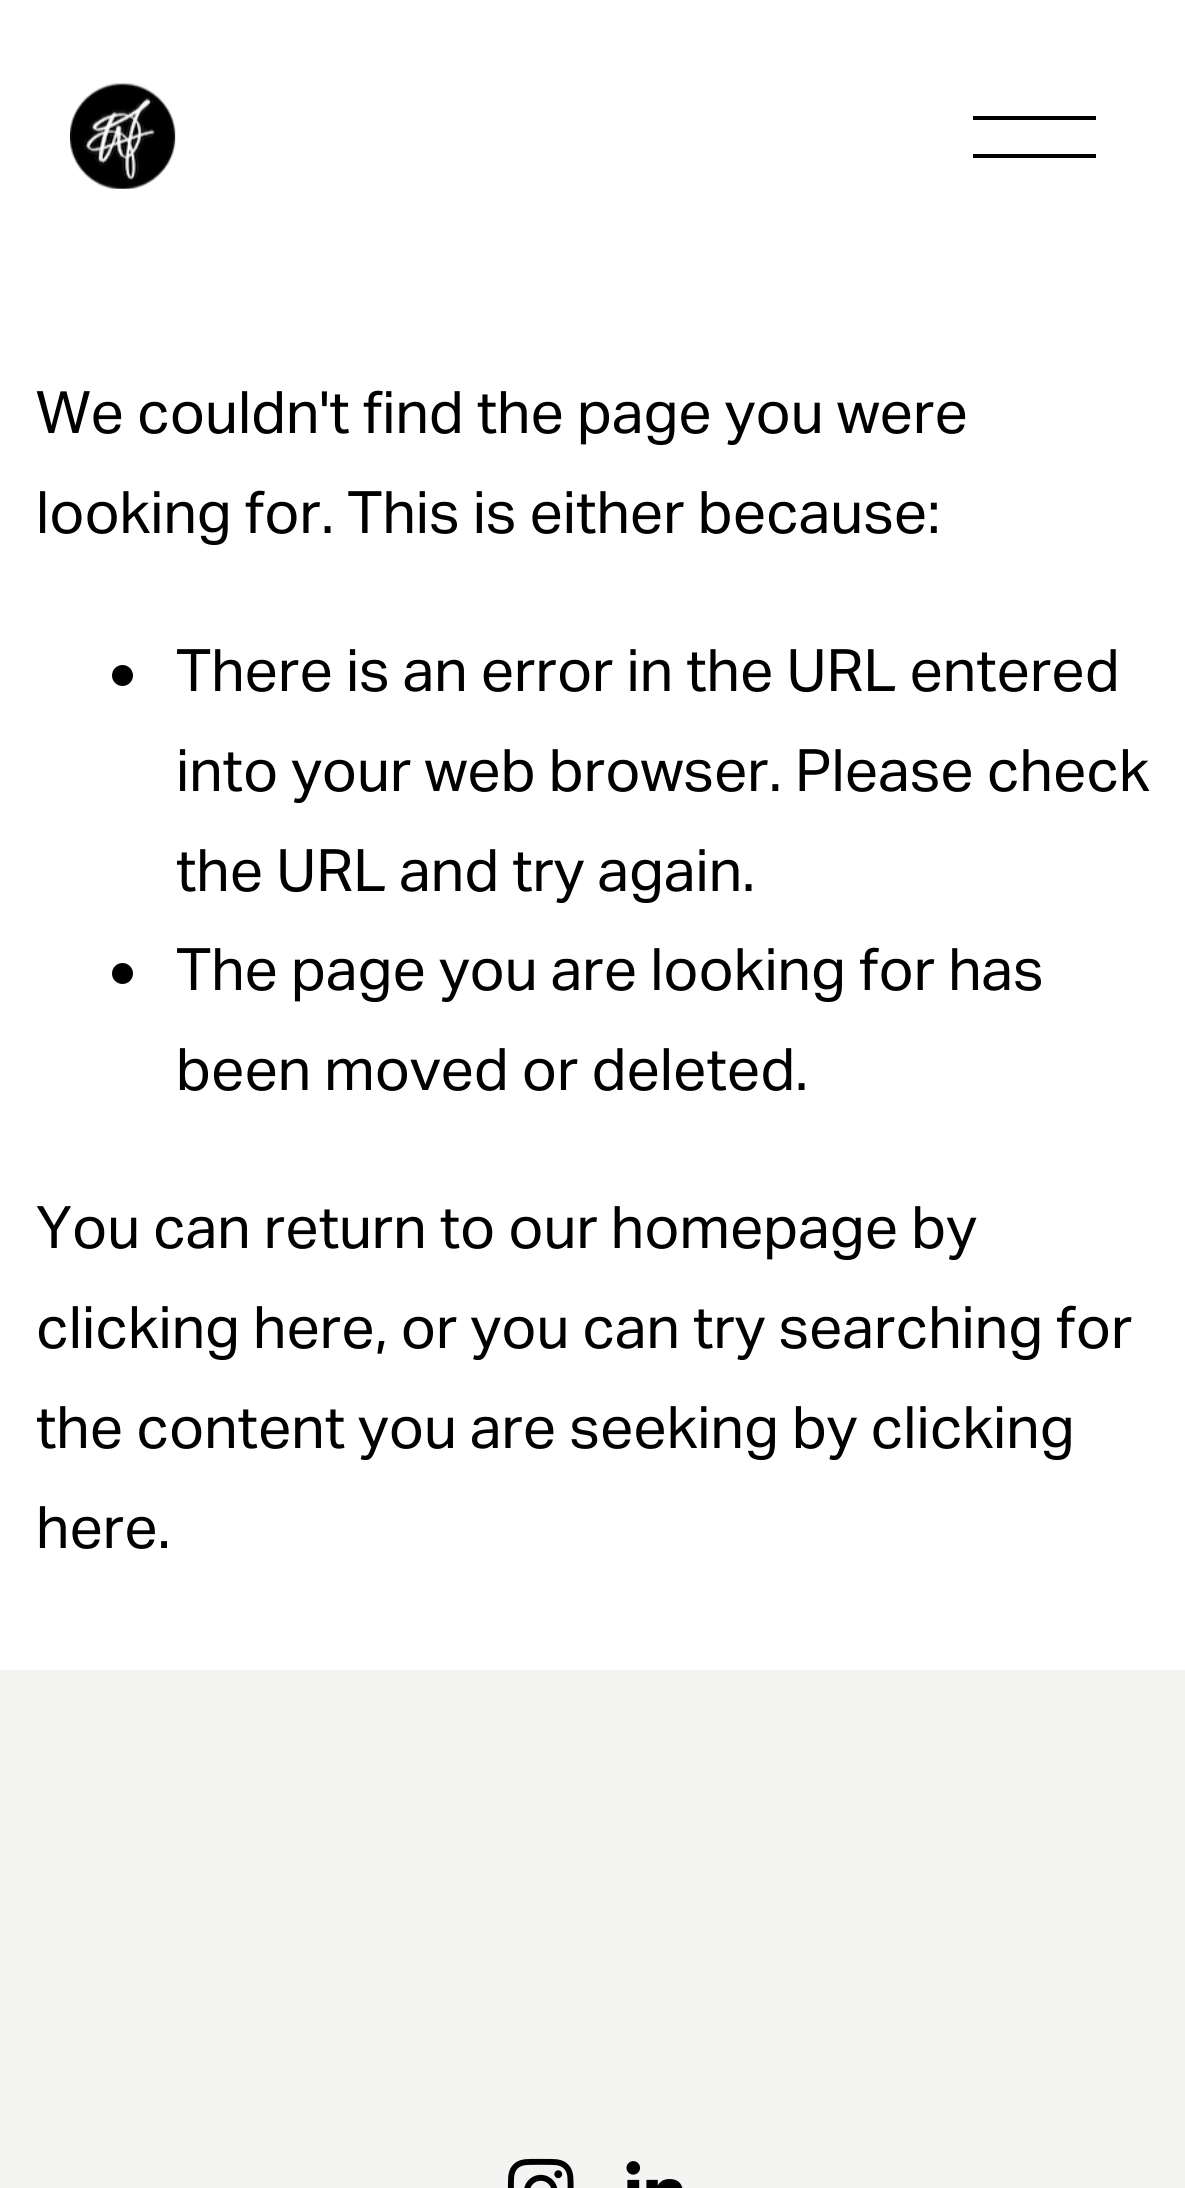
import math
import cairo

surface = cairo.ImageSurface(cairo.FORMAT_RGB24, 1185, 2188)
ctx = cairo.Context(surface)
options = cairo.FontOptions()
options.set_hint_metrics(cairo.HINT_METRICS_OFF)
options.set_hint_style(cairo.HINT_STYLE_NONE)
ctx.set_font_options(options)
ctx.set_miter_limit(4)


def set_color(code):
    ctx.set_source_rgb(*(v / 255 for v in bytes.fromhex(code[-6:])))


def draw_text(x, y, s, family, size, color, bold=False, italic=False):
    ctx.select_font_face(family, cairo.FONT_SLANT_ITALIC if italic else cairo.FONT_SLANT_NORMAL, cairo.FONT_WEIGHT_BOLD if bold else cairo.FONT_WEIGHT_NORMAL)
    ctx.set_font_size(size)
    set_color(color)
    ctx.move_to(x, y)
    ctx.show_text(s)


def fill_rect(x, y, w, h, color):
    set_color(color)
    ctx.rectangle(x, y, w, h)
    ctx.fill()


def draw_image(path, x, y, w, h):
    ctx.save()
    ctx.set_source_surface(cairo.ImageSurface.create_from_png(path), x, y)
    ctx.rectangle(x, y, w, h)
    ctx.fill()
    ctx.restore()


set_color("#ffffff")
ctx.paint()
draw_image("assets/img1.png", 70, 83, 106, 106)
fill_rect(973, 116, 123, 4, "#000000")
fill_rect(973, 154, 123, 4, "#000000")
draw_text(36, 433, "We couldn't find the page you were", "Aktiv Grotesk", 58.6, "#000000")
draw_text(36, 533, "looking for. This is either because:", "Aktiv Grotesk", 58.6, "#000000")
ctx.new_path()
ctx.arc(122.5, 675.5, 10.5, 0, 2 * math.pi)
ctx.fill()
draw_text(176, 691, "There is an error in the URL entered", "Aktiv Grotesk", 58.6, "#000000")
draw_text(176, 791, "into your web browser. Please check", "Aktiv Grotesk", 58.6, "#000000")
draw_text(176, 891, "the URL and try again.", "Aktiv Grotesk", 58.6, "#000000")
ctx.new_path()
ctx.arc(122.5, 973.5, 10.5, 0, 2 * math.pi)
ctx.fill()
draw_text(176, 990, "The page you are looking for has", "Aktiv Grotesk", 58.6, "#000000")
draw_text(176, 1090, "been moved or deleted.", "Aktiv Grotesk", 58.6, "#000000")
draw_text(36, 1248, "You can return to our homepage by", "Aktiv Grotesk", 58.6, "#000000")
draw_text(36, 1348, "clicking here, or you can try searching for", "Aktiv Grotesk", 58.6, "#000000")
draw_text(36, 1448, "the content you are seeking by clicking", "Aktiv Grotesk", 58.6, "#000000")
draw_text(36, 1548, "here.", "Aktiv Grotesk", 58.6, "#000000")
fill_rect(0, 1670, 1185, 518, "#f4f4f3")
draw_image("assets/img2.png", 507, 2158, 67, 30)
draw_image("assets/img3.png", 626, 2161, 57, 27)
surface.write_to_png("output.png")
